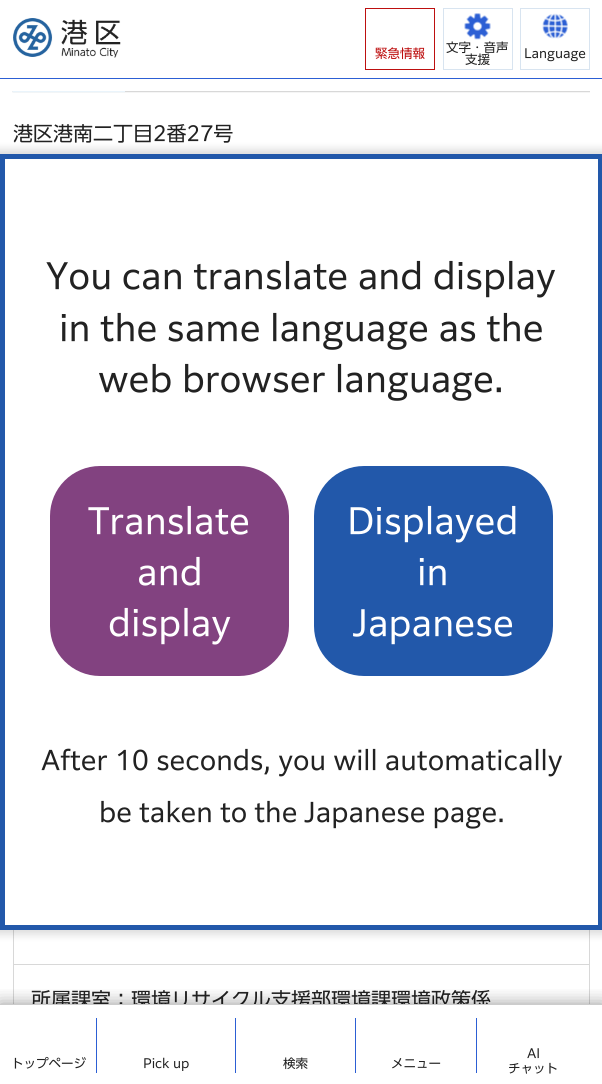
import math
import cairo

surface = cairo.ImageSurface(cairo.FORMAT_RGB24, 602, 1084)
ctx = cairo.Context(surface)
options = cairo.FontOptions()
options.set_hint_metrics(cairo.HINT_METRICS_OFF)
options.set_hint_style(cairo.HINT_STYLE_NONE)
ctx.set_font_options(options)
ctx.set_miter_limit(4)


def set_color(code):
    ctx.set_source_rgb(*(v / 255 for v in bytes.fromhex(code[-6:])))


def draw_text(x, y, s, family, size, color, bold=False, italic=False):
    ctx.select_font_face(family, cairo.FONT_SLANT_ITALIC if italic else cairo.FONT_SLANT_NORMAL, cairo.FONT_WEIGHT_BOLD if bold else cairo.FONT_WEIGHT_NORMAL)
    ctx.set_font_size(size)
    set_color(color)
    ctx.move_to(x, y)
    ctx.show_text(s)


def fill_rect(x, y, w, h, color):
    set_color(color)
    ctx.rectangle(x, y, w, h)
    ctx.fill()


def rounded_rect(x, y, w, h, r):
    ctx.new_sub_path()
    for i, (u, v) in enumerate([(x + w - r, y + h - r), (x + r, y + h - r), (x + r, y + r), (x + w - r, y + r)]):
        ctx.arc(u, v, r, i * math.pi / 2, (i + 1) * math.pi / 2)
    ctx.close_path()


def draw_shadow(x, y, w, h, r, blur, alpha):
    ctx.push_group_with_content(cairo.CONTENT_ALPHA)
    ctx.set_operator(cairo.OPERATOR_SOURCE)
    for i in range(15, -16, -2):
        e = blur * i / 6
        if min(w, h) + 2 * e > 0:
            ctx.set_source_rgba(0, 0, 0, alpha * math.erfc((i - 1) / 8.5) / 2)
            rounded_rect(x - e, y - e, w + 2 * e, h + 2 * e, max(0, min(r + e + blur * .6, min(w, h) / 2 + e)))
            ctx.fill()
    ctx.mask(ctx.pop_group())


def draw_image(path, x, y, w, h):
    ctx.save()
    ctx.set_source_surface(cairo.ImageSurface.create_from_png(path), x, y)
    ctx.rectangle(x, y, w, h)
    ctx.fill()
    ctx.restore()


set_color("#ffffff")
ctx.paint()
fill_rect(0, 78, 602, 1, "#2c5fd4")
draw_image("assets/img1.png", 13, 18, 108, 40)
ctx.rectangle(365.5, 8.5, 69, 61)
set_color("#bd0f0f")
ctx.set_line_width(1)
ctx.stroke()
draw_text(375, 58, "緊急情報", "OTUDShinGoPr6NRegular", 12.5, "#bd0f0f")
draw_image("assets/img2.png", 464, 13, 27, 27)
ctx.rectangle(443.5, 8.5, 69, 61)
set_color("#d8e4f0")
ctx.stroke()
draw_text(446, 52, "文字・音声", "OTUDShinGoPr6NRegular", 12.5, "#222222")
draw_text(465, 64, "支援", "OTUDShinGoPr6NRegular", 12.5, "#222222")
draw_image("assets/img3.png", 542, 13, 26, 26)
ctx.rectangle(520.5, 8.5, 69, 61)
set_color("#d8e4f0")
ctx.stroke()
draw_text(524, 58, "Language", "OTUDShinGoPr6NRegular", 12.5, "#222222")
draw_image("assets/img4.png", 12, 91, 578, 2)
draw_text(13, 141, "港区港南二丁目2番27号", "OTUDShinGoPr6NRegular", 20, "#222222")
ctx.rectangle(13.5, 894.5, 576, 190)
set_color("#d8d8d8")
ctx.stroke()
fill_rect(14, 964, 575, 1, "#d8d8d8")
draw_text(31, 1007, "所属課室：環境リサイクル支援部環境課環境政策係", "OTUDShinGoPr6NRegular", 20, "#222222")
set_color("#000000")
draw_shadow(-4, 150, 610, 784, 0, 4.5, 0.15)
set_color("#ffffff")
ctx.rectangle(2.5, 156.5, 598, 771)
ctx.fill_preserve()
set_color("#2258aa")
ctx.set_line_width(5)
ctx.stroke()
draw_text(46, 289, "You can translate and display", "OTUDShinGoPr6NRegular", 34.25, "#222222")
draw_text(59, 341, "in the same language as the", "OTUDShinGoPr6NRegular", 34.25, "#222222")
draw_text(98, 392, "web browser language.", "OTUDShinGoPr6NRegular", 34.25, "#222222")
set_color("#824280")
rounded_rect(50, 466, 239, 210, 50)
ctx.fill()
draw_text(88, 534, "Translate", "OTUDShinGoPr6NRegular", 34.25, "#ffffff")
draw_text(137, 585, "and", "OTUDShinGoPr6NRegular", 34.25, "#ffffff")
draw_text(108, 636, "display", "OTUDShinGoPr6NRegular", 34.25, "#ffffff")
set_color("#2258aa")
rounded_rect(314, 466, 239, 210, 50)
ctx.fill()
draw_text(347, 534, "Displayed", "OTUDShinGoPr6NRegular", 34.25, "#ffffff")
draw_text(417, 585, "in", "OTUDShinGoPr6NRegular", 34.25, "#ffffff")
draw_text(353, 636, "Japanese", "OTUDShinGoPr6NRegular", 34.25, "#ffffff")
draw_text(41, 770, "After 10 seconds, you will automatically", "OTUDShinGoPr6NRegular", 25.75, "#222222")
draw_text(99, 822, "be taken to the Japanese page.", "OTUDShinGoPr6NRegular", 25.75, "#222222")
fill_rect(13, 1004, 577, 80, "#ffffff")
ctx.save()
ctx.rectangle(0, 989, 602, 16)
ctx.clip()
set_color("#000000")
draw_shadow(-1, 1004, 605, 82, 0, 9, 0.4)
ctx.restore()
draw_text(11, 1068, "トップページ", "OTUDShinGoPr6NRegular", 12.5, "#222222")
fill_rect(96, 1018, 1, 55, "#2c5fd4")
draw_text(143, 1068, "Pick up", "OTUDShinGoPr6NRegular", 12.5, "#222222")
fill_rect(235, 1018, 1, 55, "#2c5fd4")
draw_text(283, 1068, "検索", "OTUDShinGoPr6NRegular", 12.5, "#222222")
fill_rect(355, 1018, 1, 55, "#2c5fd4")
draw_text(391, 1068, "メニュー", "OTUDShinGoPr6NRegular", 12.5, "#222222")
fill_rect(476, 1018, 1, 55, "#2c5fd4")
draw_text(527, 1058, "AI", "OTUDShinGoPr6NRegular", 12.5, "#222222")
draw_text(508, 1073, "チャット", "OTUDShinGoPr6NRegular", 12.5, "#222222")
surface.write_to_png("output.png")
